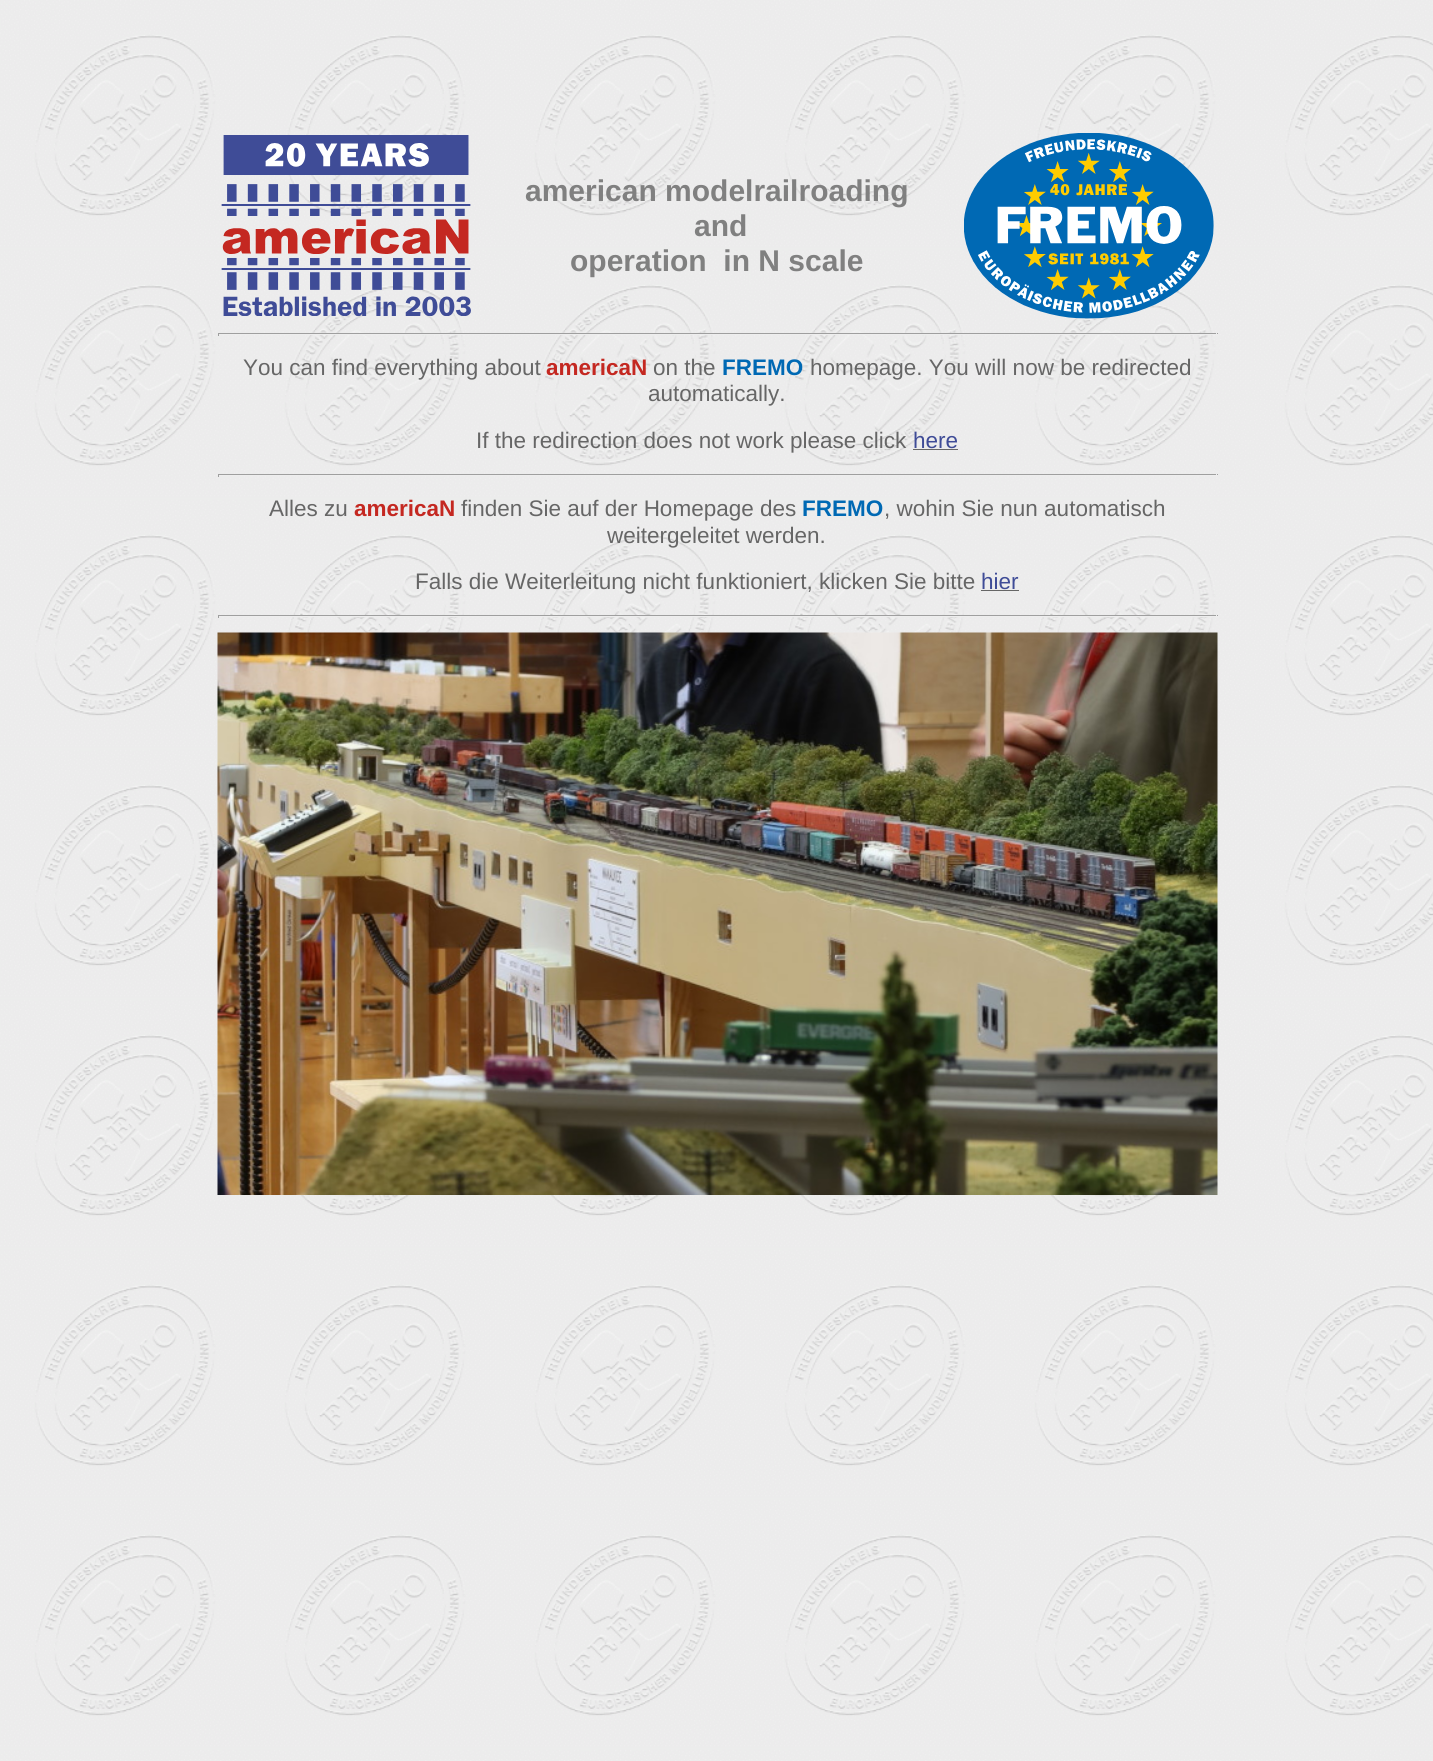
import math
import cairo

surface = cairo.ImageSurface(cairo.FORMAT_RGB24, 1433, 1761)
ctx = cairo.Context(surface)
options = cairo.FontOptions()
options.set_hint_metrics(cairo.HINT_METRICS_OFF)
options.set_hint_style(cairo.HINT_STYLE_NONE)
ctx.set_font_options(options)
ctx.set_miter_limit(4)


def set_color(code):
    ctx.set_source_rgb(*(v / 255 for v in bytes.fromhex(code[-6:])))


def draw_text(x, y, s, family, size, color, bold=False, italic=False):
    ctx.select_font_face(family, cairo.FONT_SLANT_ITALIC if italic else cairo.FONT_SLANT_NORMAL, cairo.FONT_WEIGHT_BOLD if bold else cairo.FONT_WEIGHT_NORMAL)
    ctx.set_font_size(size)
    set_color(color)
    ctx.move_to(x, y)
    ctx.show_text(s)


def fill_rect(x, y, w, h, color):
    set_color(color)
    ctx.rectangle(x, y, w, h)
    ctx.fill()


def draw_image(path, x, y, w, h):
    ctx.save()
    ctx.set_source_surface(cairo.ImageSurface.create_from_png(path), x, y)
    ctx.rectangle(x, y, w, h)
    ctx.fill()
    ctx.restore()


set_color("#ffffff")
ctx.paint()
draw_image("assets/img1.png", 0, 0, 1433, 1761)
draw_image("assets/img2.png", 221, 135, 250, 181)
draw_text(525, 201, "american modelrailroading", "Liberation Sans", 30, "#808080", bold=True)
draw_text(694, 236, "and", "Liberation Sans", 30, "#808080", bold=True)
draw_text(570, 271, "operation  in N scale", "Liberation Sans", 30, "#808080", bold=True)
draw_image("assets/img3.png", 964, 133, 250, 186)
fill_rect(218, 333, 1000, 1, "#9f9f9f")
fill_rect(1216, 333, 1, 3, "#eeeeee")
fill_rect(218, 334, 1000, 1, "#eeeeee")
fill_rect(218, 333, 1, 3, "#9f9f9f")
draw_text(243, 375, "You can find everything about", "Liberation Sans", 22.5, "#666666")
draw_text(546, 375, "americaN", "Liberation Sans", 22.5, "#c42821", bold=True)
draw_text(653, 375, "on the", "Liberation Sans", 22.5, "#666666")
draw_text(722, 375, "FREMO", "Liberation Sans", 22.5, "#0069b4", bold=True)
draw_text(810, 375, "homepage. You will now be redirected", "Liberation Sans", 22.5, "#666666")
draw_text(648, 401, "automatically.", "Liberation Sans", 22.5, "#666666")
draw_text(476, 448, "If the redirection does not work please click", "Liberation Sans", 22.5, "#666666")
draw_text(913, 448, "here", "Liberation Sans", 22.5, "#3f4c97")
fill_rect(913, 449, 45, 1, "#666666")
fill_rect(218, 474, 1000, 1, "#9f9f9f")
fill_rect(1216, 474, 1, 3, "#eeeeee")
fill_rect(218, 475, 1000, 1, "#eeeeee")
fill_rect(218, 474, 1, 3, "#9f9f9f")
draw_text(269, 516, "Alles zu", "Liberation Sans", 22.5, "#666666")
draw_text(354, 516, "americaN", "Liberation Sans", 22.5, "#c42821", bold=True)
draw_text(461, 516, "finden Sie auf der Homepage des", "Liberation Sans", 22.5, "#666666")
draw_text(802, 516, "FREMO", "Liberation Sans", 22.5, "#0069b4", bold=True)
draw_text(884, 516, ", wohin Sie nun automatisch", "Liberation Sans", 22.5, "#666666")
draw_text(607, 543, "weitergeleitet werden.", "Liberation Sans", 22.5, "#666666")
draw_text(415, 589, "Falls die Weiterleitung nicht funktioniert, klicken Sie bitte", "Liberation Sans", 22.5, "#666666")
draw_text(981, 589, "hier", "Liberation Sans", 22.5, "#3f4c97")
fill_rect(981, 590, 38, 1, "#666666")
fill_rect(218, 615, 1000, 1, "#9f9f9f")
fill_rect(1216, 615, 1, 3, "#eeeeee")
fill_rect(218, 616, 1000, 1, "#eeeeee")
fill_rect(218, 615, 1, 3, "#9f9f9f")
draw_image("assets/img4.png", 217, 632, 1001, 563)
surface.write_to_png("output.png")
